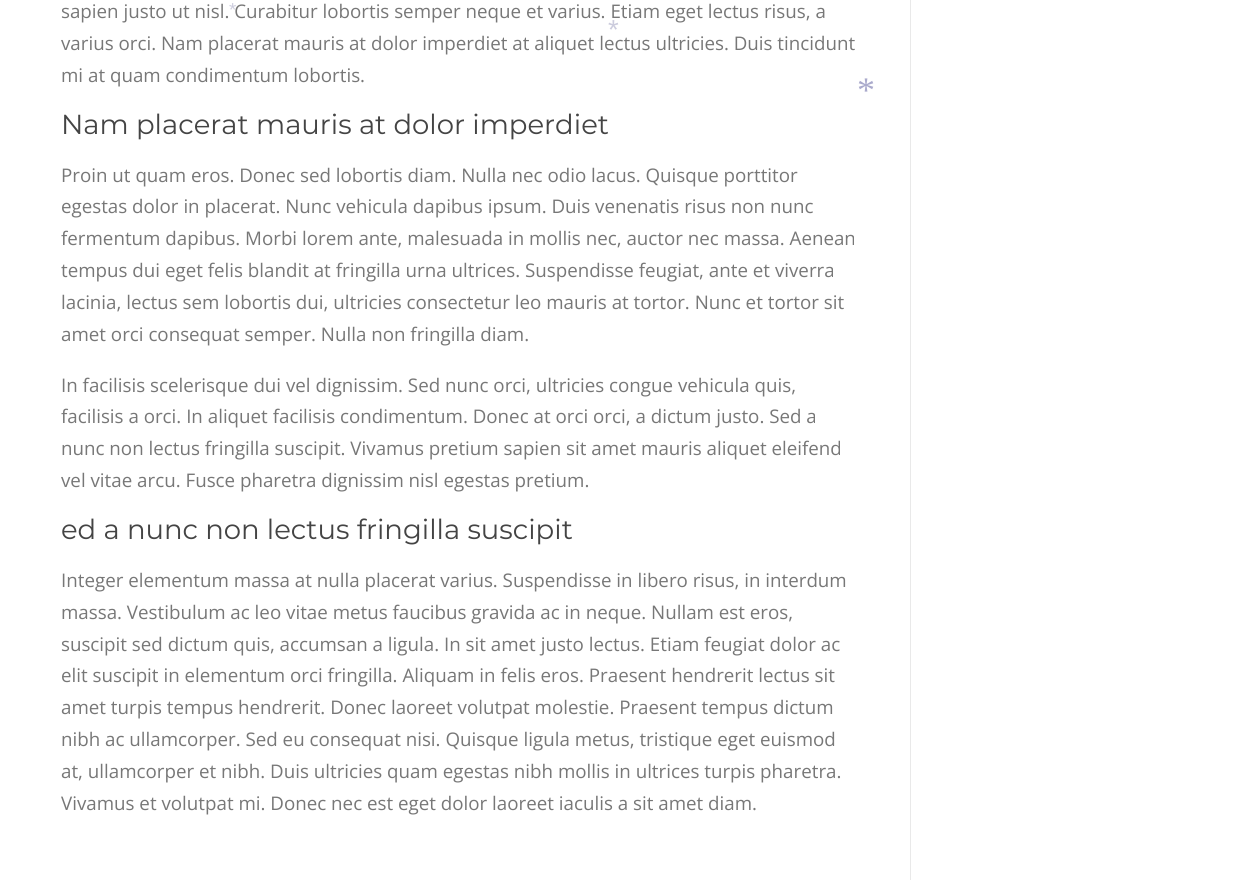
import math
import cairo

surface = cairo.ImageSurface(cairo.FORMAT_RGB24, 1259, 880)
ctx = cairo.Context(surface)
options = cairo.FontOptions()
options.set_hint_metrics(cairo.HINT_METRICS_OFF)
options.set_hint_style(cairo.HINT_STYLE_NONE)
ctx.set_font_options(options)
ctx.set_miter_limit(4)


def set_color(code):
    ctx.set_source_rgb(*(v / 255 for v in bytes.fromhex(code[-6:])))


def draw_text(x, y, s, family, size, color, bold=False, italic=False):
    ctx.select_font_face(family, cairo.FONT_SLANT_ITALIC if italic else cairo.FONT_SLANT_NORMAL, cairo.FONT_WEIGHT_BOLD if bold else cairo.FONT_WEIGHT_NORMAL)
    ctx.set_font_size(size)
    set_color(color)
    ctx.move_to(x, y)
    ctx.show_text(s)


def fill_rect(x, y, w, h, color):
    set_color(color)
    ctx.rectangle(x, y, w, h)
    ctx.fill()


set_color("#ffffff")
ctx.paint()
fill_rect(910, 0, 1, 880, "#e9e9e9")
draw_text(61, 18, "sapien justo ut nisl. Curabitur lobortis semper neque et varius. Etiam eget lectus risus, a", "Open Sans", 18.75, "#777777")
draw_text(61, 50, "varius orci. Nam placerat mauris at dolor imperdiet at aliquet lectus ultricies. Duis tincidunt", "Open Sans", 18.75, "#777777")
draw_text(61, 82, "mi at quam condimentum lobortis.", "Open Sans", 18.75, "#777777")
draw_text(61, 134, "Nam placerat mauris at dolor imperdiet", "Montserrat", 27.5, "#444444")
draw_text(61, 182, "Proin ut quam eros. Donec sed lobortis diam. Nulla nec odio lacus. Quisque porttitor", "Open Sans", 18.75, "#777777")
draw_text(61, 213, "egestas dolor in placerat. Nunc vehicula dapibus ipsum. Duis venenatis risus non nunc", "Open Sans", 18.75, "#777777")
draw_text(61, 245, "fermentum dapibus. Morbi lorem ante, malesuada in mollis nec, auctor nec massa. Aenean", "Open Sans", 18.75, "#777777")
draw_text(61, 277, "tempus dui eget felis blandit at fringilla urna ultrices. Suspendisse feugiat, ante et viverra", "Open Sans", 18.75, "#777777")
draw_text(61, 309, "lacinia, lectus sem lobortis dui, ultricies consectetur leo mauris at tortor. Nunc et tortor sit", "Open Sans", 18.75, "#777777")
draw_text(61, 341, "amet orci consequat semper. Nulla non fringilla diam.", "Open Sans", 18.75, "#777777")
draw_text(61, 392, "In facilisis scelerisque dui vel dignissim. Sed nunc orci, ultricies congue vehicula quis,", "Open Sans", 18.75, "#777777")
draw_text(61, 423, "facilisis a orci. In aliquet facilisis condimentum. Donec at orci orci, a dictum justo. Sed a", "Open Sans", 18.75, "#777777")
draw_text(61, 455, "nunc non lectus fringilla suscipit. Vivamus pretium sapien sit amet mauris aliquet eleifend", "Open Sans", 18.75, "#777777")
draw_text(61, 487, "vel vitae arcu. Fusce pharetra dignissim nisl egestas pretium.", "Open Sans", 18.75, "#777777")
draw_text(61, 539, "ed a nunc non lectus fringilla suscipit", "Montserrat", 27.5, "#444444")
draw_text(61, 587, "Integer elementum massa at nulla placerat varius. Suspendisse in libero risus, in interdum", "Open Sans", 18.75, "#777777")
draw_text(61, 619, "massa. Vestibulum ac leo vitae metus faucibus gravida ac in neque. Nullam est eros,", "Open Sans", 18.75, "#777777")
draw_text(61, 651, "suscipit sed dictum quis, accumsan a ligula. In sit amet justo lectus. Etiam feugiat dolor ac", "Open Sans", 18.75, "#777777")
draw_text(61, 682, "elit suscipit in elementum orci fringilla. Aliquam in felis eros. Praesent hendrerit lectus sit", "Open Sans", 18.75, "#777777")
draw_text(61, 714, "amet turpis tempus hendrerit. Donec laoreet volutpat molestie. Praesent tempus dictum", "Open Sans", 18.75, "#777777")
draw_text(61, 746, "nibh ac ullamcorper. Sed eu consequat nisi. Quisque ligula metus, tristique eget euismod", "Open Sans", 18.75, "#777777")
draw_text(61, 778, "at, ullamcorper et nibh. Duis ultricies quam egestas nibh mollis in ultrices turpis pharetra.", "Open Sans", 18.75, "#777777")
draw_text(61, 810, "Vivamus et volutpat mi. Donec nec est eget dolor laoreet iaculis a sit amet diam.", "Open Sans", 18.75, "#777777")
draw_text(229, 16, "*", "Liberation Sans", 18.75, "#ccccdd")
draw_text(608, 39, "*", "Liberation Sans", 27.5, "#ccccdd")
draw_text(857, 102, "*", "Liberation Serif", 36, "#aaaacc")
surface.write_to_png("output.png")
